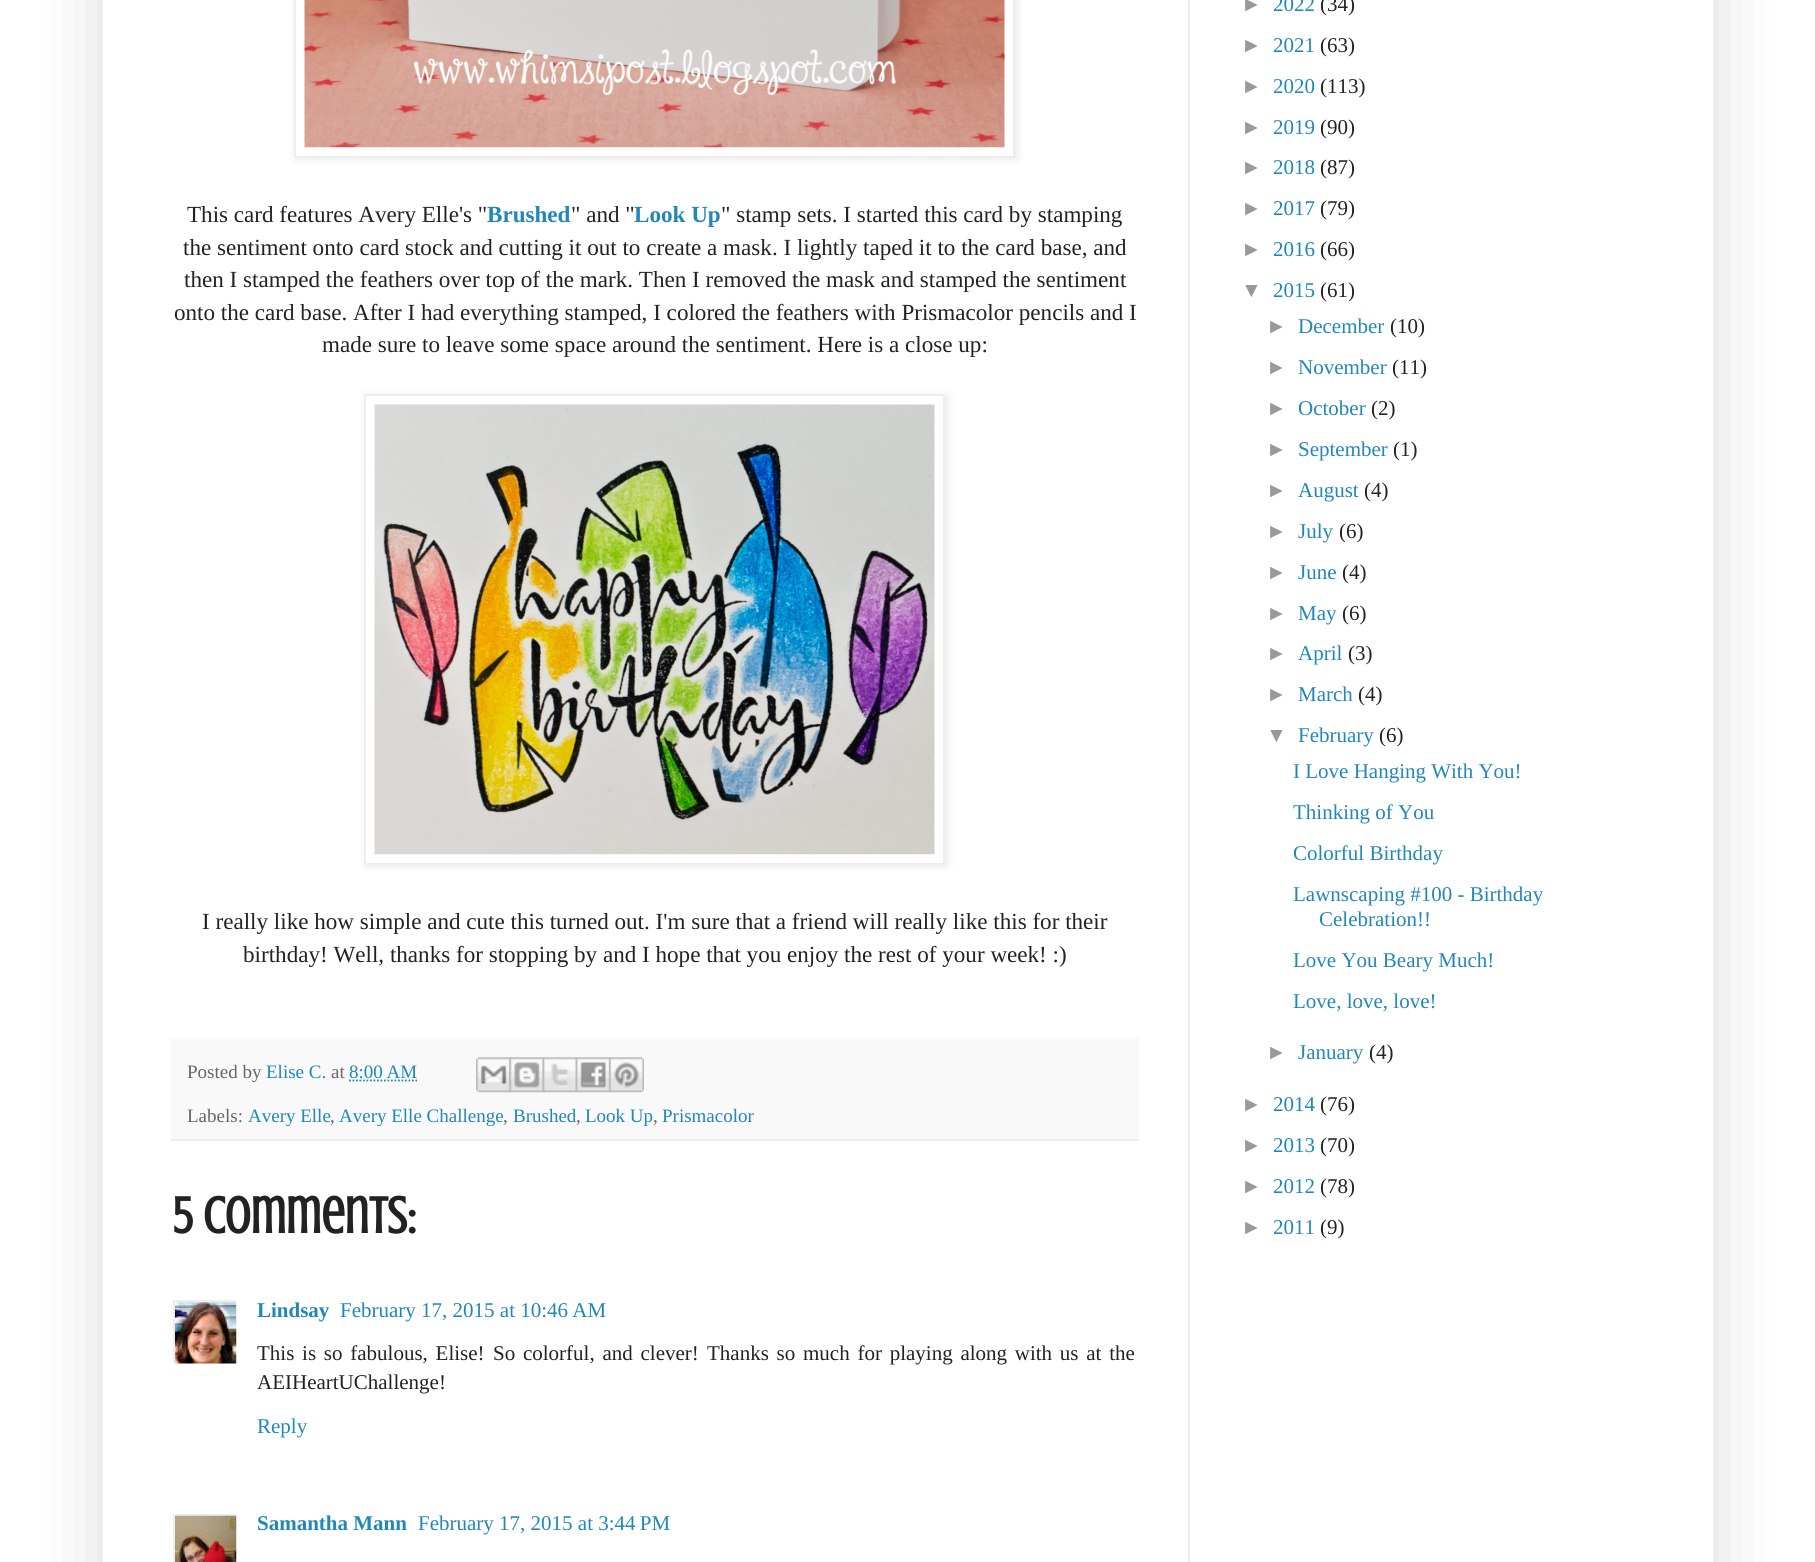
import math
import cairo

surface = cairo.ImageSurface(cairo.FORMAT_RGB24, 1815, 1562)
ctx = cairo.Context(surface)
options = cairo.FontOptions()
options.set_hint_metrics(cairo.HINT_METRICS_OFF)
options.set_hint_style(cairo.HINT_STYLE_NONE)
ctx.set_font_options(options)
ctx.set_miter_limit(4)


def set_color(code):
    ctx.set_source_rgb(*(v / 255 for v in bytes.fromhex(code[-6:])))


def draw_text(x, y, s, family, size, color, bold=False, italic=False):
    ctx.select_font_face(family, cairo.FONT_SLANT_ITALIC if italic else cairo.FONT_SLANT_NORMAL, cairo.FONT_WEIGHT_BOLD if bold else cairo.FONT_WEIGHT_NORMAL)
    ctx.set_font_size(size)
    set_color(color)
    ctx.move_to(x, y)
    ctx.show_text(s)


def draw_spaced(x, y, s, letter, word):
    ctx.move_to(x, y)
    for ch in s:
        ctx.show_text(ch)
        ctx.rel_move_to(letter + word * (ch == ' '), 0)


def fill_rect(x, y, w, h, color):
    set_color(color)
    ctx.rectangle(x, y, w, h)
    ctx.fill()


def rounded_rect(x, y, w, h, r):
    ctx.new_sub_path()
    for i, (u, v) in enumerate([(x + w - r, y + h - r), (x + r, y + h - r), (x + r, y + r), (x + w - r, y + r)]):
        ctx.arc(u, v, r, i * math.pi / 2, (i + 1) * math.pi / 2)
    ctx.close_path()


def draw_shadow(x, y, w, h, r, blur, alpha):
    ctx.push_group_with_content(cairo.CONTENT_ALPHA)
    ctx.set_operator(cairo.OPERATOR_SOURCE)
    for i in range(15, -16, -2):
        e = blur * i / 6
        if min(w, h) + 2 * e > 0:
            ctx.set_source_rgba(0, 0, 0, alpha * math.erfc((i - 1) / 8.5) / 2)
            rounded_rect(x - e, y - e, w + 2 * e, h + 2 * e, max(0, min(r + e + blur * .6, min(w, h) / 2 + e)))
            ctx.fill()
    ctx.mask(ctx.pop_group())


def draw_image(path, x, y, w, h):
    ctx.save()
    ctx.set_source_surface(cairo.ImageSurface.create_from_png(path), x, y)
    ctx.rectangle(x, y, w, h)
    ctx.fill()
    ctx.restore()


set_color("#ffffff")
ctx.paint()
set_color("#000000")
draw_shadow(103, -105, 1610, 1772, 0, 35, 0.15)
fill_rect(103, 0, 1610, 1562, "#ffffff")
set_color("#000000")
draw_shadow(296, -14, 721, 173, 0, 4.5, 0.1)
set_color("#ffffff")
ctx.rectangle(295, -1, 719, 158)
ctx.fill_preserve()
set_color("#eeeeee")
ctx.stroke()
draw_image("assets/img1.png", 304, 0, 701, 148)
draw_text(187, 222, "This card features Avery Elle's \"", "Liberation Serif", 23.1, "#222222")
draw_text(487, 222, "Brushed", "Liberation Serif", 23.1, "#2187bb", bold=True)
draw_text(571, 222, "\" and \"", "Liberation Serif", 23.1, "#222222")
draw_text(634, 222, "Look Up", "Liberation Serif", 23.1, "#2187bb", bold=True)
draw_text(721, 222, "\" stamp sets. I started this card by stamping", "Liberation Serif", 23.1, "#222222")
draw_text(183, 255, "the sentiment onto card stock and cutting it out to create a mask. I lightly taped it to the card base, and", "Liberation Serif", 23.1, "#222222")
draw_text(184, 287, "then I stamped the feathers over top of the mark. Then I removed the mask and stamped the sentiment", "Liberation Serif", 23.1, "#222222")
draw_text(174, 320, "onto the card base. After I had everything stamped, I colored the feathers with Prismacolor pencils and I", "Liberation Serif", 23.1, "#222222")
draw_text(322, 352, "made sure to leave some space around the sentiment. Here is a close up:", "Liberation Serif", 23.1, "#222222")
set_color("#000000")
draw_shadow(366, 396, 581, 470, 0, 4.5, 0.1)
set_color("#ffffff")
ctx.rectangle(365, 395, 579, 469)
ctx.fill_preserve()
set_color("#eeeeee")
ctx.stroke()
draw_image("assets/img2.png", 374, 404, 561, 451)
draw_text(202, 929, "I really like how simple and cute this turned out. I'm sure that a friend will really like this for their", "Liberation Serif", 23.1, "#222222")
draw_text(243, 962, "birthday! Well, thanks for stopping by and I hope that you enjoy the rest of your week! :)", "Liberation Serif", 23.1, "#222222")
fill_rect(170, 1038, 969, 101, "#f9f9f9")
fill_rect(170, 1139, 969, 2, "#eeeeee")
draw_text(187, 1078, "Posted by", "Liberation Serif", 19, "#666666")
draw_text(266, 1078, "Elise C.", "Liberation Serif", 19, "#2187bb")
draw_text(331, 1078, "at", "Liberation Serif", 19, "#666666")
draw_text(349, 1078, "8:00 AM", "Liberation Serif", 19, "#2187bb")
ctx.new_path()
ctx.move_to(349, 1080.5)
ctx.line_to(417, 1080.5)
ctx.set_line_width(1.8)
ctx.set_dash([1.75, 1.75])
ctx.stroke()
draw_image("assets/img3.png", 476, 1057, 35, 36)
draw_image("assets/img4.png", 509, 1057, 36, 36)
draw_image("assets/img5.png", 542, 1057, 36, 36)
draw_image("assets/img6.png", 575, 1057, 36, 36)
draw_image("assets/img7.png", 609, 1057, 35, 36)
draw_text(187, 1122, "Labels:", "Liberation Serif", 19, "#666666")
draw_text(248, 1122, "Avery Elle", "Liberation Serif", 19, "#2187bb")
draw_text(330, 1122, ",", "Liberation Serif", 19, "#666666")
draw_text(339, 1122, "Avery Elle Challenge", "Liberation Serif", 19, "#2187bb")
draw_text(503, 1122, ",", "Liberation Serif", 19, "#666666")
draw_text(513, 1122, "Brushed", "Liberation Serif", 19, "#2187bb")
draw_text(576, 1122, ",", "Liberation Serif", 19, "#666666")
draw_text(585, 1122, "Look Up", "Liberation Serif", 19, "#2187bb")
draw_text(653, 1122, ",", "Liberation Serif", 19, "#666666")
draw_text(662, 1122, "Prismacolor", "Liberation Serif", 19, "#2187bb")
draw_text(173, 1233, "5 comments:", "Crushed", 52.5, "#222222", bold=True)
ctx.save()
ctx.rectangle(173, 1300, 63, 63)
ctx.clip()
ctx.rectangle(174, 1301, 65, 65)
set_color("#eeeeee")
ctx.set_line_width(2)
ctx.set_dash([])
ctx.stroke()
ctx.restore()
draw_image("assets/img8.png", 175, 1302, 62, 62)
draw_text(257, 1317, "Lindsay", "Liberation Serif", 21, "#2187bb", bold=True)
draw_text(340, 1317, "February 17, 2015 at 10:46 AM", "Liberation Serif", 21, "#2187bb")
set_color("#222222")
draw_spaced(257, 1360, "This is so fabulous, Elise!", 0, 2.5)
draw_spaced(493, 1360, "So colorful, and clever!", 0, 2.5)
draw_spaced(707, 1360, "Thanks so much for playing along with us at the", 0, 2.5)
draw_text(257, 1389, "AEIHeartUChallenge!", "Liberation Serif", 21, "#222222")
draw_text(257, 1433, "Reply", "Liberation Serif", 21, "#2187bb")
ctx.save()
ctx.rectangle(173, 1514, 63, 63)
ctx.clip()
ctx.rectangle(174, 1515, 65, 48)
set_color("#eeeeee")
ctx.set_line_width(2)
ctx.set_dash([])
ctx.stroke()
ctx.restore()
draw_image("assets/img9.png", 175, 1515, 62, 47)
draw_text(257, 1530, "Samantha Mann", "Liberation Serif", 21, "#2187bb", bold=True)
draw_text(418, 1530, "February 17, 2015 at 3:44 PM", "Liberation Serif", 21, "#2187bb")
draw_text(1241, 11, "►", "Liberation Sans", 21, "#999999")
draw_text(1273, 11, "2022", "Liberation Serif", 21, "#2187bb")
draw_text(1320, 11, "(34)", "Liberation Serif", 21, "#222222")
draw_text(1241, 52, "►", "Liberation Sans", 21, "#999999")
draw_text(1273, 52, "2021", "Liberation Serif", 21, "#2187bb")
draw_text(1320, 52, "(63)", "Liberation Serif", 21, "#222222")
draw_text(1241, 93, "►", "Liberation Sans", 21, "#999999")
draw_text(1273, 93, "2020", "Liberation Serif", 21, "#2187bb")
draw_text(1320, 93, "(113)", "Liberation Serif", 21, "#222222")
draw_text(1241, 134, "►", "Liberation Sans", 21, "#999999")
draw_text(1273, 134, "2019", "Liberation Serif", 21, "#2187bb")
draw_text(1320, 134, "(90)", "Liberation Serif", 21, "#222222")
draw_text(1241, 174, "►", "Liberation Sans", 21, "#999999")
draw_text(1273, 174, "2018", "Liberation Serif", 21, "#2187bb")
draw_text(1320, 174, "(87)", "Liberation Serif", 21, "#222222")
draw_text(1241, 215, "►", "Liberation Sans", 21, "#999999")
draw_text(1273, 215, "2017", "Liberation Serif", 21, "#2187bb")
draw_text(1320, 215, "(79)", "Liberation Serif", 21, "#222222")
draw_text(1241, 256, "►", "Liberation Sans", 21, "#999999")
draw_text(1273, 256, "2016", "Liberation Serif", 21, "#2187bb")
draw_text(1320, 256, "(66)", "Liberation Serif", 21, "#222222")
draw_text(1241, 297, "▼", "Liberation Sans", 21, "#999999")
draw_text(1273, 297, "2015", "Liberation Serif", 21, "#2187bb")
draw_text(1320, 297, "(61)", "Liberation Serif", 21, "#222222")
draw_text(1266, 333, "►", "Liberation Sans", 21, "#999999")
draw_text(1298, 333, "December", "Liberation Serif", 21, "#2187bb")
draw_text(1390, 333, "(10)", "Liberation Serif", 21, "#222222")
draw_text(1266, 374, "►", "Liberation Sans", 21, "#999999")
draw_text(1298, 374, "November", "Liberation Serif", 21, "#2187bb")
draw_text(1392, 374, "(11)", "Liberation Serif", 21, "#222222")
draw_text(1266, 415, "►", "Liberation Sans", 21, "#999999")
draw_text(1298, 415, "October", "Liberation Serif", 21, "#2187bb")
draw_text(1371, 415, "(2)", "Liberation Serif", 21, "#222222")
draw_text(1266, 456, "►", "Liberation Sans", 21, "#999999")
draw_text(1298, 456, "September", "Liberation Serif", 21, "#2187bb")
draw_text(1393, 456, "(1)", "Liberation Serif", 21, "#222222")
draw_text(1266, 497, "►", "Liberation Sans", 21, "#999999")
draw_text(1298, 497, "August", "Liberation Serif", 21, "#2187bb")
draw_text(1364, 497, "(4)", "Liberation Serif", 21, "#222222")
draw_text(1266, 538, "►", "Liberation Sans", 21, "#999999")
draw_text(1298, 538, "July", "Liberation Serif", 21, "#2187bb")
draw_text(1339, 538, "(6)", "Liberation Serif", 21, "#222222")
draw_text(1266, 579, "►", "Liberation Sans", 21, "#999999")
draw_text(1298, 579, "June", "Liberation Serif", 21, "#2187bb")
draw_text(1342, 579, "(4)", "Liberation Serif", 21, "#222222")
draw_text(1266, 620, "►", "Liberation Sans", 21, "#999999")
draw_text(1298, 620, "May", "Liberation Serif", 21, "#2187bb")
draw_text(1342, 620, "(6)", "Liberation Serif", 21, "#222222")
draw_text(1266, 660, "►", "Liberation Sans", 21, "#999999")
draw_text(1298, 660, "April", "Liberation Serif", 21, "#2187bb")
draw_text(1348, 660, "(3)", "Liberation Serif", 21, "#222222")
draw_text(1266, 701, "►", "Liberation Sans", 21, "#999999")
draw_text(1298, 701, "March", "Liberation Serif", 21, "#2187bb")
draw_text(1358, 701, "(4)", "Liberation Serif", 21, "#222222")
draw_text(1266, 742, "▼", "Liberation Sans", 21, "#999999")
draw_text(1298, 742, "February", "Liberation Serif", 21, "#2187bb")
draw_text(1379, 742, "(6)", "Liberation Serif", 21, "#222222")
draw_text(1293, 778, "I Love Hanging With You!", "Liberation Serif", 21, "#2187bb")
draw_text(1293, 819, "Thinking of You", "Liberation Serif", 21, "#2187bb")
draw_text(1293, 860, "Colorful Birthday", "Liberation Serif", 21, "#2187bb")
draw_text(1293, 901, "Lawnscaping #100 - Birthday", "Liberation Serif", 21, "#2187bb")
draw_text(1319, 926, "Celebration!!", "Liberation Serif", 21, "#2187bb")
draw_text(1293, 967, "Love You Beary Much!", "Liberation Serif", 21, "#2187bb")
draw_text(1293, 1008, "Love, love, love!", "Liberation Serif", 21, "#2187bb")
draw_text(1266, 1059, "►", "Liberation Sans", 21, "#999999")
draw_text(1298, 1059, "January", "Liberation Serif", 21, "#2187bb")
draw_text(1369, 1059, "(4)", "Liberation Serif", 21, "#222222")
draw_text(1241, 1111, "►", "Liberation Sans", 21, "#999999")
draw_text(1273, 1111, "2014", "Liberation Serif", 21, "#2187bb")
draw_text(1320, 1111, "(76)", "Liberation Serif", 21, "#222222")
draw_text(1241, 1152, "►", "Liberation Sans", 21, "#999999")
draw_text(1273, 1152, "2013", "Liberation Serif", 21, "#2187bb")
draw_text(1320, 1152, "(70)", "Liberation Serif", 21, "#222222")
draw_text(1241, 1193, "►", "Liberation Sans", 21, "#999999")
draw_text(1273, 1193, "2012", "Liberation Serif", 21, "#2187bb")
draw_text(1320, 1193, "(78)", "Liberation Serif", 21, "#222222")
draw_text(1241, 1234, "►", "Liberation Sans", 21, "#999999")
draw_text(1273, 1234, "2011", "Liberation Serif", 21, "#2187bb")
draw_text(1320, 1234, "(9)", "Liberation Serif", 21, "#222222")
fill_rect(1188, 0, 2, 1562, "#eeeeee")
surface.write_to_png("output.png")
